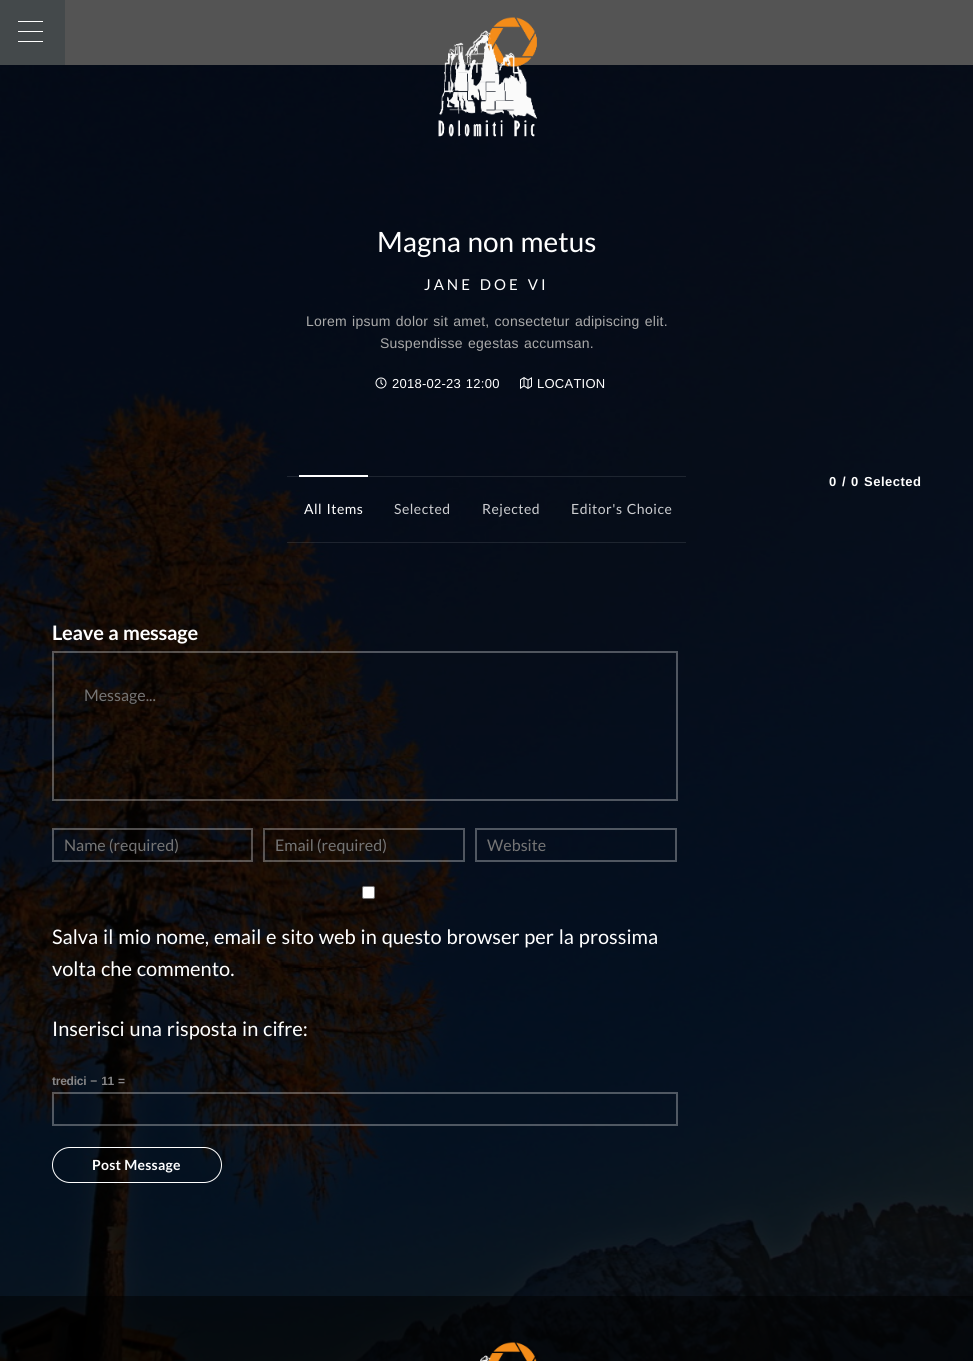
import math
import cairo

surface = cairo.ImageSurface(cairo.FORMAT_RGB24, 973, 1361)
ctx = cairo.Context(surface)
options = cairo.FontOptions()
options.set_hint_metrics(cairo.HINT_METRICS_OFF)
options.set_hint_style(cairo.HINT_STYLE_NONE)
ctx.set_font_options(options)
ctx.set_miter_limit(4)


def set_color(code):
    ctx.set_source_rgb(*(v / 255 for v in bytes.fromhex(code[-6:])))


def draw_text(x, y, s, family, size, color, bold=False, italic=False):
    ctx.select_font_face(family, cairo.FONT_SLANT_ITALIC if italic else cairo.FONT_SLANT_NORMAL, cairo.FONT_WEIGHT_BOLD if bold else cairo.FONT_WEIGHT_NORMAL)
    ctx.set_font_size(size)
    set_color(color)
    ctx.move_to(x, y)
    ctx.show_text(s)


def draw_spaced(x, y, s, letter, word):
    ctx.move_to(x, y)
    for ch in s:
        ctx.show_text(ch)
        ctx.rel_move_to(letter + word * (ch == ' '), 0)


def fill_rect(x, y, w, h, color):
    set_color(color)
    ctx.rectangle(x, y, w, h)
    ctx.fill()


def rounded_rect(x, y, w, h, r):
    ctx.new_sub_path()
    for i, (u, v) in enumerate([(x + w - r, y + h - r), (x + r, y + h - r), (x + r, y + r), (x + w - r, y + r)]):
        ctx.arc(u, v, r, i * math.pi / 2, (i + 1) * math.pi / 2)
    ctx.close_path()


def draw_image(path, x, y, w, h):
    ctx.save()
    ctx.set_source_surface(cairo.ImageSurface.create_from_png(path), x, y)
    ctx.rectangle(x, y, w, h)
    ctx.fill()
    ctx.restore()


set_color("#ffffff")
ctx.paint()
fill_rect(0, 0, 65, 65, "#44494b")
fill_rect(18, 31, 25, 1, "#ffffff")
fill_rect(18, 21, 25, 1, "#ffffff")
fill_rect(18, 41, 25, 1, "#ffffff")
fill_rect(65, 0, 908, 65, "#545454")
draw_image("assets/img2.png", 0, 65, 973, 1296)
draw_image("assets/img1.png", 438, 17, 99, 120)
ctx.select_font_face("Lato")
ctx.set_font_size(28)
set_color("#ffffff")
draw_spaced(377, 252, "Magna non metus", 0, 1)
ctx.set_font_size(15)
draw_spaced(424, 290, "JANE DOE VI", 3, 1)
ctx.select_font_face("Liberation Sans")
ctx.set_font_size(14)
set_color("#aaaaaa")
draw_spaced(306, 326, "Lorem ipsum dolor sit amet, consectetur adipiscing elit.", 0.25, 1)
draw_spaced(380, 348, "Suspendisse egestas accumsan.", 0.25, 1)
draw_image("assets/img3.png", 375, 377, 12, 12)
ctx.set_font_size(13)
set_color("#ffffff")
draw_spaced(392, 388, "2018-02-23 12:00", 0.25, 1)
draw_image("assets/img4.png", 520, 377, 12, 12)
draw_spaced(537, 388, "LOCATION", 0.25, 0)
ctx.select_font_face("Liberation Sans", cairo.FONT_SLANT_NORMAL, cairo.FONT_WEIGHT_BOLD)
draw_spaced(829, 486, "0", 0.5, 0)
draw_spaced(842, 486, "/", 0.5, 0)
draw_spaced(851, 486, "0", 0.5, 0)
draw_spaced(864, 486, "Selected", 0.5, 0)
fill_rect(287, 476, 399, 1, "#1e2530")
ctx.set_source_rgba(1, 1, 1, 0.1)
ctx.rectangle(287, 542, 399, 1)
ctx.fill()
fill_rect(299, 475, 69, 2, "#ffffff")
ctx.select_font_face("Lato")
ctx.set_font_size(14)
draw_spaced(304, 514, "All Items", 0.5, 1)
set_color("#cdced1")
draw_spaced(394, 514, "Selected", 0.5, 0)
draw_spaced(482, 514, "Rejected", 0.5, 0)
draw_spaced(571, 514, "Editor's Choice", 0.5, 1)
ctx.select_font_face("Lato", cairo.FONT_SLANT_NORMAL, cairo.FONT_WEIGHT_BOLD)
ctx.set_font_size(20)
set_color("#ffffff")
draw_spaced(52, 640, "Leave a message", -0.25, 1)
ctx.rectangle(53, 652, 624, 148)
ctx.set_source_rgba(1, 1, 1, 0.3)
ctx.stroke()
draw_text(84, 701, "Message...", "Lato", 16, "#757575")
ctx.rectangle(53, 829, 199, 32)
ctx.set_source_rgba(1, 1, 1, 0.3)
ctx.stroke()
draw_text(64, 851, "Name (required)", "Lato", 16, "#757575")
ctx.rectangle(264, 829, 200, 32)
ctx.set_source_rgba(1, 1, 1, 0.3)
ctx.stroke()
draw_text(275, 851, "Email (required)", "Lato", 16, "#757575")
ctx.rectangle(476, 829, 200, 32)
set_color("#505761")
ctx.stroke()
draw_text(487, 851, "Website", "Lato", 16, "#757575")
set_color("#ffffff")
rounded_rect(362.5, 886.5, 12, 12, 1.5)
ctx.fill_preserve()
set_color("#767676")
ctx.set_line_width(1)
ctx.stroke()
ctx.set_font_size(20)
set_color("#ffffff")
draw_spaced(52, 944, "Salva il mio nome, email e sito web in questo browser per la prossima", 0, 1)
draw_spaced(52, 976, "volta che commento.", 0, 1)
draw_spaced(52, 1036, "Inserisci una risposta in cifre:", 0, 1)
ctx.select_font_face("Liberation Sans", cairo.FONT_SLANT_NORMAL, cairo.FONT_WEIGHT_BOLD)
ctx.set_font_size(12)
set_color("#868688")
draw_spaced(52, 1085, "tredici − 11 =", -0.25, 1)
ctx.rectangle(53, 1093, 624, 32)
ctx.set_source_rgba(1, 1, 1, 0.3)
ctx.set_line_width(2)
ctx.stroke()
rounded_rect(52.5, 1147.5, 169, 35, 17.5)
set_color("#ffffff")
ctx.set_line_width(1)
ctx.stroke()
ctx.select_font_face("Lato", cairo.FONT_SLANT_NORMAL, cairo.FONT_WEIGHT_BOLD)
ctx.set_font_size(14)
draw_spaced(92, 1170, "Post Message", 0.25, 0)
ctx.set_source_rgba(0, 0, 0, 0.5)
ctx.rectangle(0, 1296, 973, 65)
ctx.fill()
draw_image("assets/img5.png", 480, 1342, 57, 19)
surface.write_to_png("output.png")
